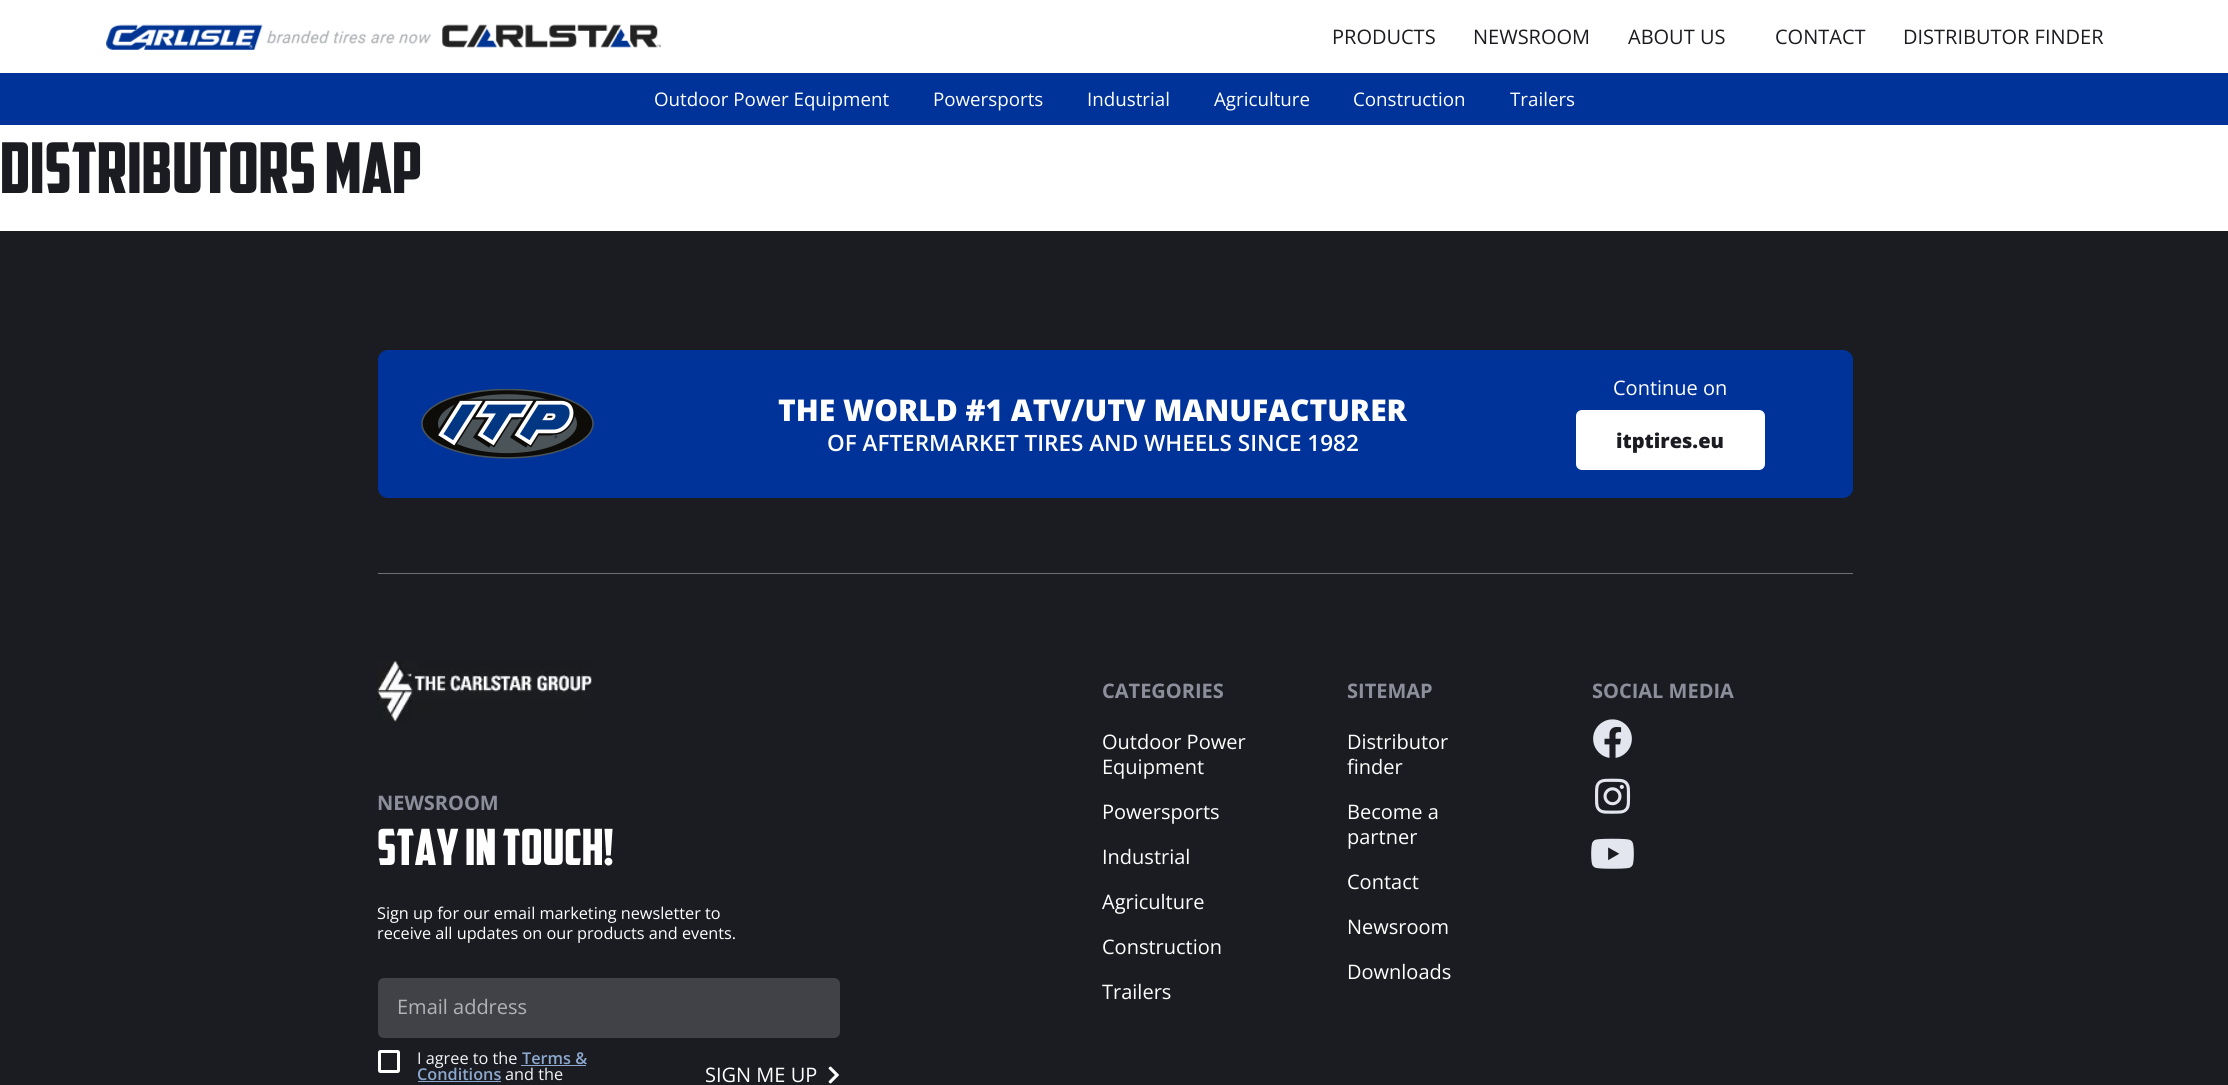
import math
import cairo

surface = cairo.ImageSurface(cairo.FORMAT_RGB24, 2228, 1085)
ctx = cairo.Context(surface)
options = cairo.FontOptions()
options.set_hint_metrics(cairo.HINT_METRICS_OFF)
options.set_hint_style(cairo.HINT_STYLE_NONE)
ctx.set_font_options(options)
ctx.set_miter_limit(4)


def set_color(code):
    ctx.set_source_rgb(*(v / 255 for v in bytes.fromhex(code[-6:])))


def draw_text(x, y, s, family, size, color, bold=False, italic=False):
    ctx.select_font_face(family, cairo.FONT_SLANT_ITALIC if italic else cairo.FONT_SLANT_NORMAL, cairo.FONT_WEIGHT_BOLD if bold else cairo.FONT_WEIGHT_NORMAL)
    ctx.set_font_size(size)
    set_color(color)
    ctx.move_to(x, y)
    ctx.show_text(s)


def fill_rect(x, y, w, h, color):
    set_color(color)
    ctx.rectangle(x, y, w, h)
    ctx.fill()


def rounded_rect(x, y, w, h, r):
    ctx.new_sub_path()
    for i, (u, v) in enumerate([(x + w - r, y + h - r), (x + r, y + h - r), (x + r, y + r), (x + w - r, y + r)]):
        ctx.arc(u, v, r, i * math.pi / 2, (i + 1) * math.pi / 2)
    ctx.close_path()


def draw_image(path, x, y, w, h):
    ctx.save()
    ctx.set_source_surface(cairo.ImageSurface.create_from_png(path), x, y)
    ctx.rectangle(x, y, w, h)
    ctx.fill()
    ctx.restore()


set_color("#ffffff")
ctx.paint()
draw_image("assets/img1.png", 106, 24, 555, 26)
draw_text(1332, 44, "PRODUCTS", "Open Sans", 20, "#1b1c21")
draw_text(1473, 44, "NEWSROOM", "Open Sans", 20, "#1b1c21")
draw_text(1628, 44, "ABOUT US", "Open Sans", 20, "#1b1c21")
draw_text(1775, 44, "CONTACT", "Open Sans", 20, "#1b1c21")
draw_text(1903, 44, "DISTRIBUTOR FINDER", "Open Sans", 20, "#1b1c21")
fill_rect(0, 73, 2228, 52, "#003399")
draw_text(654, 106, "Outdoor Power Equipment", "Open Sans", 18.75, "#ffffff")
draw_text(933, 106, "Powersports", "Open Sans", 18.75, "#ffffff")
draw_text(1087, 106, "Industrial", "Open Sans", 18.75, "#ffffff")
draw_text(1214, 106, "Agriculture", "Open Sans", 18.75, "#ffffff")
draw_text(1353, 106, "Construction", "Open Sans", 18.75, "#ffffff")
draw_text(1510, 106, "Trailers", "Open Sans", 18.75, "#ffffff")
draw_text(0, 193, "Distributors map", "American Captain", 70, "#1b1c21")
fill_rect(0, 231, 2228, 854, "#1b1c21")
set_color("#003399")
rounded_rect(378, 350, 1475, 148, 10)
ctx.fill()
draw_image("assets/img2.png", 421, 389, 173, 70)
draw_text(778, 421, "THE WORLD #1 ATV/UTV MANUFACTURER", "Open Sans ExtraBold", 30, "#ffffff")
draw_text(827, 451, "OF AFTERMARKET TIRES AND WHEELS SINCE 1982", "Open Sans SemiBold", 22.5, "#ffffff")
draw_text(1613, 395, "Continue on", "Open Sans", 20, "#ffffff")
rounded_rect(1576, 410, 189, 60, 6)
ctx.fill()
draw_text(1616, 448, "itptires.eu", "Open Sans ExtraBold", 20, "#1b1c21")
fill_rect(378, 573, 1475, 1, "#707070")
draw_text(1102, 698, "CATEGORIES", "Open Sans", 20, "#8c8f9b", bold=True)
draw_text(1102, 749, "Outdoor Power", "Open Sans", 20, "#ffffff")
draw_text(1102, 774, "Equipment", "Open Sans", 20, "#ffffff")
draw_text(1102, 819, "Powersports", "Open Sans", 20, "#ffffff")
draw_text(1102, 864, "Industrial", "Open Sans", 20, "#ffffff")
draw_text(1102, 909, "Agriculture", "Open Sans", 20, "#ffffff")
draw_text(1102, 954, "Construction", "Open Sans", 20, "#ffffff")
draw_text(1102, 999, "Trailers", "Open Sans", 20, "#ffffff")
draw_text(1347, 698, "SITEMAP", "Open Sans", 20, "#8c8f9b", bold=True)
draw_text(1347, 749, "Distributor", "Open Sans", 20, "#ffffff")
draw_text(1347, 774, "finder", "Open Sans", 20, "#ffffff")
draw_text(1347, 819, "Become a", "Open Sans", 20, "#ffffff")
draw_text(1347, 844, "partner", "Open Sans", 20, "#ffffff")
draw_text(1347, 889, "Contact", "Open Sans", 20, "#ffffff")
draw_text(1347, 934, "Newsroom", "Open Sans", 20, "#ffffff")
draw_text(1347, 979, "Downloads", "Open Sans", 20, "#ffffff")
draw_text(1592, 698, "SOCIAL MEDIA", "Open Sans", 20, "#8c8f9b", bold=True)
draw_image("assets/img3.png", 1593, 719, 39, 39)
draw_image("assets/img4.png", 1595, 778, 36, 36)
draw_image("assets/img5.png", 1591, 838, 43, 31)
draw_image("assets/img6.png", 377, 661, 215, 61)
draw_text(377, 810, "NEWSROOM", "Open Sans", 20, "#8c8f9b", bold=True)
draw_text(377, 865, "Stay in touch!", "American Captain", 50, "#ffffff")
draw_text(377, 919, "Sign up for our email marketing newsletter to", "Open Sans", 16.25, "#ffffff")
draw_text(377, 939, "receive all updates on our products and events.", "Open Sans", 16.25, "#ffffff")
set_color("#414247")
rounded_rect(378, 978, 462, 60, 6)
ctx.fill()
draw_text(397, 1014, "Email address", "Open Sans", 20, "#b3b3b5")
rounded_rect(379.5, 1051.5, 19, 20, 1)
set_color("#ffffff")
ctx.set_line_width(3)
ctx.stroke()
draw_text(417, 1064, "I agree to the", "Open Sans", 16.25, "#f2f5f9")
draw_text(522, 1064, "Terms &", "Open Sans SemiBold", 16.25, "#8ca8ce")
fill_rect(521, 1065, 65, 1, "#8ca8ce")
draw_text(417, 1080, "Conditions", "Open Sans SemiBold", 16.25, "#8ca8ce")
fill_rect(418, 1081, 83, 1, "#8ca8ce")
draw_text(505, 1080, "and the", "Open Sans", 16.25, "#f2f5f9")
draw_text(705, 1082, "SIGN ME UP", "Open Sans", 20, "#ffffff")
draw_image("assets/img7.png", 828, 1066, 11, 18)
surface.write_to_png("output.png")
